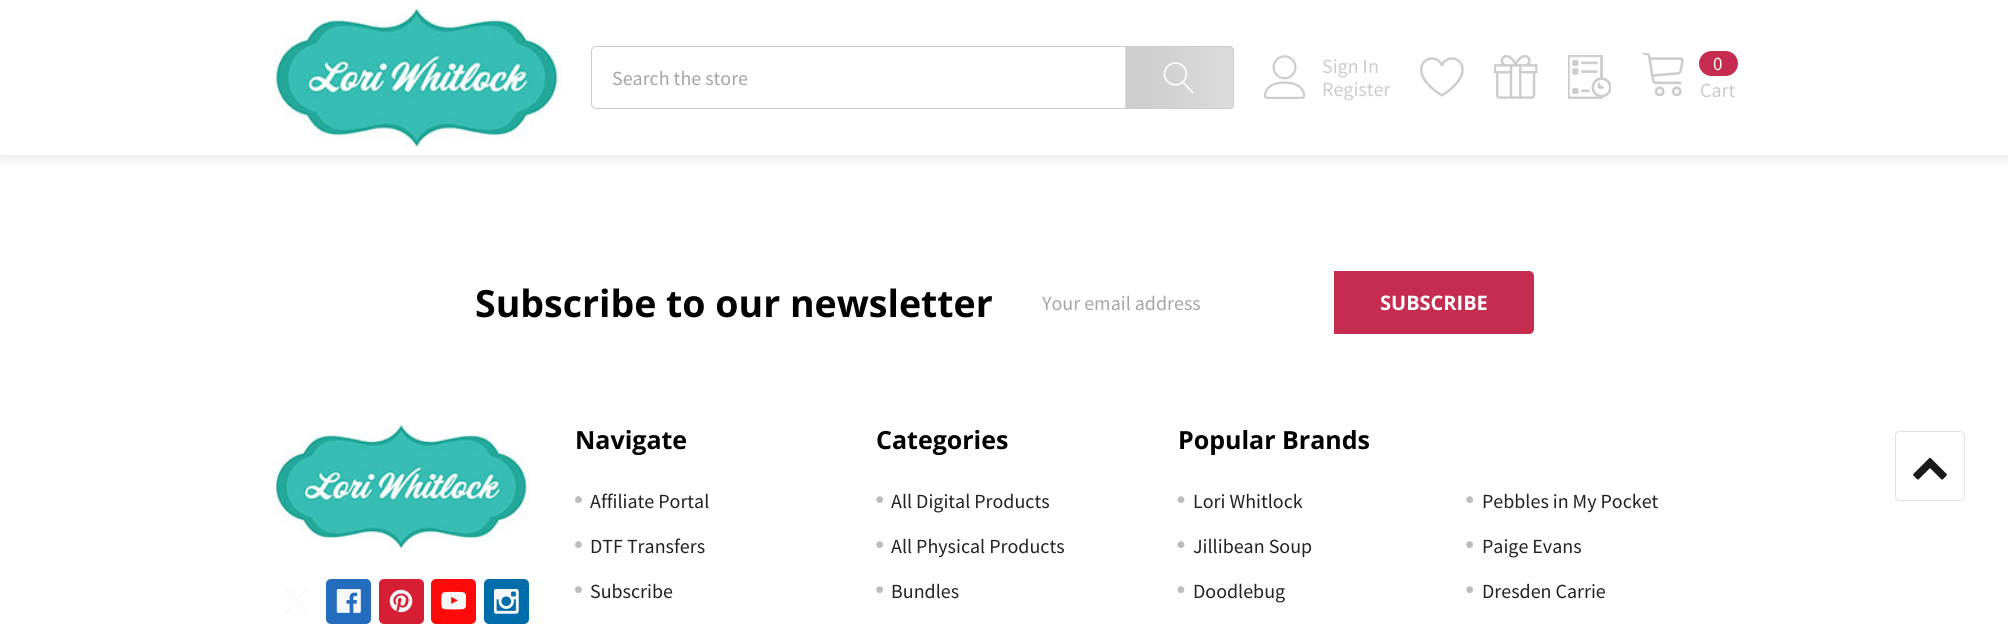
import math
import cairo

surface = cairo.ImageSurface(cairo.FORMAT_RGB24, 2008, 626)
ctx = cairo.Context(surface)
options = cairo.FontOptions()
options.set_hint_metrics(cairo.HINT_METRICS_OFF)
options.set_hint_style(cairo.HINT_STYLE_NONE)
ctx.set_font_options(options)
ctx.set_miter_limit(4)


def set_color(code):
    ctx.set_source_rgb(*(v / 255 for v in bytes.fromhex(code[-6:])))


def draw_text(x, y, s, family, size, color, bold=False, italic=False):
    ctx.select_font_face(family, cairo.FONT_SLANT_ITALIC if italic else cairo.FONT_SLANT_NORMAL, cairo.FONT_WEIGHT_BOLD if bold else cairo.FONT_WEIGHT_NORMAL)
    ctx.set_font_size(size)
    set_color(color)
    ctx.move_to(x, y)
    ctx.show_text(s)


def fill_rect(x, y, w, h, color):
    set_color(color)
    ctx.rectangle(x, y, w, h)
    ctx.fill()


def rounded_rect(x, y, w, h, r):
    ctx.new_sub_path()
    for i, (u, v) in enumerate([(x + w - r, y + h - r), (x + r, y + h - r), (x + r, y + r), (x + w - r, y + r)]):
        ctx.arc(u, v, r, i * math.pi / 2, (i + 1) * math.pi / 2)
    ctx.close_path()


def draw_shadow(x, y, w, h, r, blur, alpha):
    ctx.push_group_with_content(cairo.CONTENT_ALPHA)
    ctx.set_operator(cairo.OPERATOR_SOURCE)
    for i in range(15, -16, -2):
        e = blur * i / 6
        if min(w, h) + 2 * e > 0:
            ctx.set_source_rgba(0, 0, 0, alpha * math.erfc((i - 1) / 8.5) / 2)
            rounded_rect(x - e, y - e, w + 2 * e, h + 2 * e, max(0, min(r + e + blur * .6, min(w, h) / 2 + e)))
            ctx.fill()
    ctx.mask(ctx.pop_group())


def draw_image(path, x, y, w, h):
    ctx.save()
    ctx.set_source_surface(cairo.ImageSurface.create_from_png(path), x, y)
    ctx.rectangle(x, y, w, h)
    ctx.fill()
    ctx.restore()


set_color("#ffffff")
ctx.paint()
set_color("#000000")
draw_shadow(0, 3, 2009, 155, 0, 6, 0.1)
fill_rect(0, 0, 2008, 155, "#ffffff")
draw_image("assets/img1.png", 274, 7, 287, 141)
rounded_rect(591.5, 46.5, 642, 62, 4.5)
set_color("#cccccc")
ctx.set_line_width(1)
ctx.stroke()
draw_text(612, 85, "Search the store", "Source Sans Pro", 20, "#a5a5a5")
gradient = cairo.LinearGradient(1020, 78, 1126, 78)
gradient.add_color_stop_rgba(0, 0.8, 0.8, 0.8, 1)
gradient.add_color_stop_rgba(1, 0.8, 0.8, 0.8, 0.7)
ctx.set_source(gradient)
ctx.rectangle(1125, 46, 1, 63)
ctx.fill()
ctx.save()
ctx.new_path()
ctx.move_to(1125, 46)
ctx.line_to(1229, 46)
ctx.curve_to(1232, 46, 1234, 48, 1234, 51)
ctx.line_to(1234, 104)
ctx.curve_to(1234, 107, 1232, 109, 1229, 109)
ctx.line_to(1125, 109)
ctx.close_path()
ctx.clip()
gradient = cairo.LinearGradient(1126, 78, 1233, 78)
gradient.add_color_stop_rgba(0, 0.8, 0.8, 0.8, 1)
gradient.add_color_stop_rgba(1, 0.8, 0.8, 0.8, 0.7)
ctx.set_source(gradient)
ctx.rectangle(1126, 46, 107, 63)
ctx.fill()
gradient = cairo.LinearGradient(1233, 78, 1339, 78)
gradient.add_color_stop_rgba(0, 0.8, 0.8, 0.8, 1)
gradient.add_color_stop_rgba(1, 0.8, 0.8, 0.8, 0.7)
ctx.set_source(gradient)
ctx.rectangle(1233, 46, 1, 63)
ctx.fill()
ctx.restore()
draw_image("assets/img2.png", 1163, 62, 31, 32)
draw_image("assets/img3.png", 1263, 55, 43, 44)
draw_text(1322, 73, "Sign In", "Source Sans Pro", 20, "#cccccc")
draw_text(1322, 96, "Register", "Source Sans Pro", 20, "#cccccc")
draw_image("assets/img4.png", 1420, 57, 44, 40)
draw_image("assets/img5.png", 1494, 55, 44, 44)
draw_image("assets/img6.png", 1568, 55, 43, 44)
draw_image("assets/img7.png", 1642, 53, 42, 43)
set_color("#c62b50")
rounded_rect(1699, 51, 39, 25, 12.5)
ctx.fill()
draw_text(1713, 70, "0", "Source Sans Pro", 19, "#ffffff")
draw_text(1700, 97, "Cart", "Source Sans Pro", 20, "#cccccc")
draw_text(475, 317, "Subscribe to our newsletter", "Open Sans", 37.5, "#000000", bold=True)
draw_text(1042, 310, "Your email address", "Source Sans Pro", 20, "#a5a5a5")
set_color("#c62b50")
ctx.new_path()
ctx.move_to(1334.5, 271.5)
ctx.line_to(1529, 271.5)
ctx.curve_to(1531.5, 271.5, 1533.5, 273.5, 1533.5, 276)
ctx.line_to(1533.5, 329)
ctx.curve_to(1533.5, 331.5, 1531.5, 333.5, 1529, 333.5)
ctx.line_to(1334.5, 333.5)
ctx.close_path()
ctx.fill_preserve()
ctx.stroke()
draw_text(1380, 310, "SUBSCRIBE", "Open Sans", 20, "#ffffff", bold=True)
draw_image("assets/img8.png", 274, 424, 256, 125)
draw_image("assets/img9.png", 285, 589, 23, 25)
set_color("#236cbe")
rounded_rect(326, 579, 45, 45, 5)
ctx.fill()
draw_image("assets/img10.png", 336, 589, 25, 24)
set_color("#d61f35")
rounded_rect(379, 579, 45, 45, 5)
ctx.fill()
draw_image("assets/img11.png", 389, 589, 24, 24)
set_color("#ff0a0a")
rounded_rect(431, 579, 45, 45, 5)
ctx.fill()
draw_image("assets/img12.png", 441, 591, 25, 19)
set_color("#006dab")
rounded_rect(484, 579, 45, 45, 5)
ctx.fill()
draw_image("assets/img13.png", 494, 589, 25, 25)
draw_text(575, 449, "Navigate", "Open Sans", 25, "#000000", bold=True)
draw_image("assets/img14.png", 575, 496, 7, 7)
draw_text(590, 508, "Affiliate Portal", "Source Sans Pro", 20, "#222222")
draw_image("assets/img14.png", 575, 541, 7, 7)
draw_text(590, 553, "DTF Transfers", "Source Sans Pro", 20, "#222222")
draw_image("assets/img14.png", 575, 586, 7, 7)
draw_text(590, 598, "Subscribe", "Source Sans Pro", 20, "#222222")
draw_text(876, 449, "Categories", "Open Sans", 25, "#000000", bold=True)
draw_image("assets/img15.png", 876, 496, 7, 7)
draw_text(891, 508, "All Digital Products", "Source Sans Pro", 20, "#222222")
draw_image("assets/img15.png", 876, 541, 7, 7)
draw_text(891, 553, "All Physical Products", "Source Sans Pro", 20, "#222222")
draw_image("assets/img15.png", 876, 586, 7, 7)
draw_text(891, 598, "Bundles", "Source Sans Pro", 20, "#222222")
draw_text(1178, 449, "Popular Brands", "Open Sans", 25, "#000000", bold=True)
draw_image("assets/img16.png", 1177, 496, 8, 7)
draw_text(1193, 508, "Lori Whitlock", "Source Sans Pro", 20, "#222222")
draw_image("assets/img15.png", 1466, 496, 7, 7)
draw_text(1482, 508, "Pebbles in My Pocket", "Source Sans Pro", 20, "#222222")
draw_image("assets/img16.png", 1177, 541, 8, 7)
draw_text(1193, 553, "Jillibean Soup", "Source Sans Pro", 20, "#222222")
draw_image("assets/img15.png", 1466, 541, 7, 7)
draw_text(1482, 553, "Paige Evans", "Source Sans Pro", 20, "#222222")
draw_image("assets/img16.png", 1177, 586, 8, 7)
draw_text(1193, 598, "Doodlebug", "Source Sans Pro", 20, "#222222")
draw_image("assets/img15.png", 1466, 586, 7, 7)
draw_text(1482, 598, "Dresden Carrie", "Source Sans Pro", 20, "#222222")
rounded_rect(1895.5, 431.5, 69, 69, 4.5)
set_color("#e0e1e4")
ctx.stroke()
draw_image("assets/img17.png", 1913, 457, 34, 23)
surface.write_to_png("output.png")
